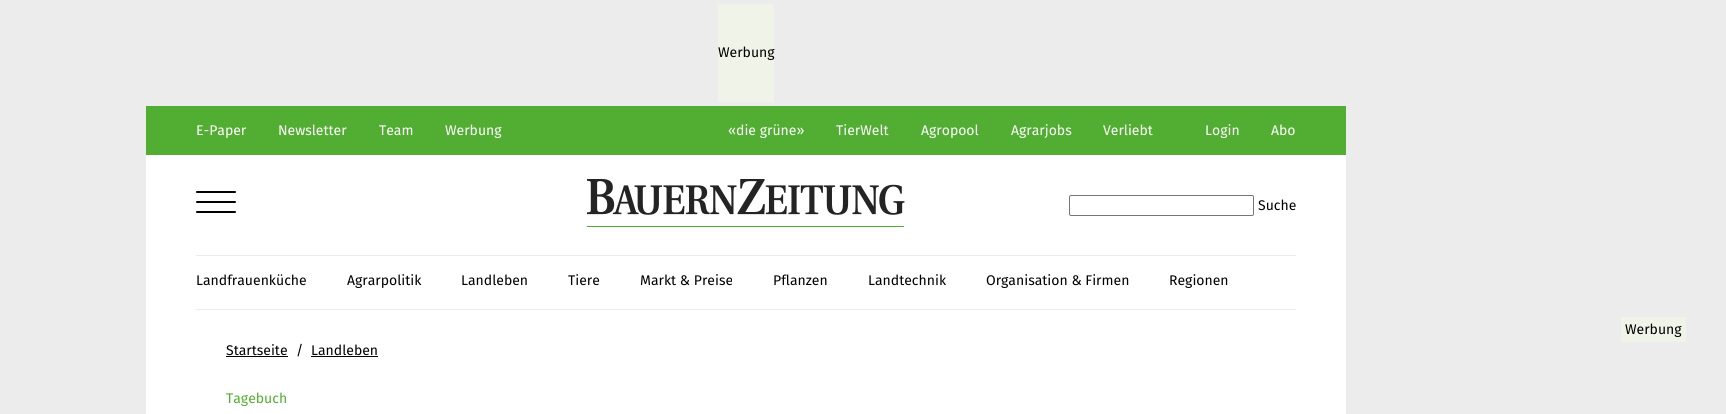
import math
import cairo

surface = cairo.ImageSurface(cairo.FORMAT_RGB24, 1726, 414)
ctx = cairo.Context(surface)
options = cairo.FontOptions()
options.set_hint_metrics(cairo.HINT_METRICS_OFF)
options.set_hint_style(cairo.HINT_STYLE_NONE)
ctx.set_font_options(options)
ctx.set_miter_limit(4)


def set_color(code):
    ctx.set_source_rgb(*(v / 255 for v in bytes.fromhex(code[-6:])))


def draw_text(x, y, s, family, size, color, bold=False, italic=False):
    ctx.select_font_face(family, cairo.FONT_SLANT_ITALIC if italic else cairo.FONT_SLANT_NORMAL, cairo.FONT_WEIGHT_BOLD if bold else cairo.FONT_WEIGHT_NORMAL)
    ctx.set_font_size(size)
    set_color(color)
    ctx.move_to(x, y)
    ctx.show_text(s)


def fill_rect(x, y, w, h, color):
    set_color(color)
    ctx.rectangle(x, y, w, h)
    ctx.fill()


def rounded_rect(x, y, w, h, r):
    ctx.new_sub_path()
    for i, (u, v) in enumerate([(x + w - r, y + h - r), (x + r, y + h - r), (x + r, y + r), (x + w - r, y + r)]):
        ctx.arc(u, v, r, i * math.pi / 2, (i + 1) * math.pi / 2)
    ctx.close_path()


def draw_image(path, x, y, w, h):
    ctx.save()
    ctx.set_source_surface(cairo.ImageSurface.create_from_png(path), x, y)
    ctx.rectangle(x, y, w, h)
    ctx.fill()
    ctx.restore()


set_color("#ececec")
ctx.paint()
fill_rect(718, 4, 56, 98, "#f0f3e7")
draw_text(718, 57, "Werbung", "Fira Sans", 14, "#000000")
fill_rect(146, 155, 1200, 259, "#ffffff")
fill_rect(146, 106, 1200, 49, "#52ae32")
draw_text(196, 135, "E-Paper", "Fira Sans", 14, "#ffffff")
draw_text(278, 135, "Newsletter", "Fira Sans", 14, "#ffffff")
draw_text(379, 135, "Team", "Fira Sans", 14, "#ffffff")
draw_text(445, 135, "Werbung", "Fira Sans", 14, "#ffffff")
draw_text(728, 135, "«die grüne»", "Fira Sans", 14, "#ffffff")
draw_text(836, 135, "TierWelt", "Fira Sans", 14, "#ffffff")
draw_text(921, 135, "Agropool", "Fira Sans", 14, "#ffffff")
draw_text(1011, 135, "Agrarjobs", "Fira Sans", 14, "#ffffff")
draw_text(1103, 135, "Verliebt", "Fira Sans", 14, "#ffffff")
draw_text(1205, 135, "Login", "Fira Sans", 14, "#ffffff")
draw_text(1271, 135, "Abo", "Fira Sans", 14, "#ffffff")
set_color("#000000")
rounded_rect(196, 201, 40, 2, 1)
ctx.fill()
rounded_rect(196, 191, 40, 2, 1)
ctx.fill()
rounded_rect(196, 211, 40, 2, 1)
ctx.fill()
draw_image("assets/img1.png", 587, 179, 318, 48)
rounded_rect(1069.5, 195.5, 184, 20, 1.5)
set_color("#767676")
ctx.set_line_width(1)
ctx.stroke()
draw_text(1258, 210, "Suche", "Fira Sans", 14, "#000000")
fill_rect(196, 255, 1100, 1, "#ebebeb")
fill_rect(196, 309, 1100, 1, "#ebebeb")
draw_text(196, 285, "Landfrauenküche", "Fira Sans", 14, "#000000")
draw_text(347, 285, "Agrarpolitik", "Fira Sans", 14, "#000000")
draw_text(461, 285, "Landleben", "Fira Sans", 14, "#000000")
draw_text(568, 285, "Tiere", "Fira Sans", 14, "#000000")
draw_text(640, 285, "Markt & Preise", "Fira Sans", 14, "#000000")
draw_text(773, 285, "Pflanzen", "Fira Sans", 14, "#000000")
draw_text(868, 285, "Landtechnik", "Fira Sans", 14, "#000000")
draw_text(986, 285, "Organisation & Firmen", "Fira Sans", 14, "#000000")
draw_text(1169, 285, "Regionen", "Fira Sans", 14, "#000000")
fill_rect(1621, 317, 65, 25, "#f0f3e7")
draw_text(1625, 334, "Werbung", "Fira Sans", 14, "#000000")
draw_text(226, 355, "Startseite", "Fira Sans", 14, "#000000")
fill_rect(226, 356, 62, 1, "#000000")
draw_text(296, 355, "/", "Fira Sans", 14, "#000000")
draw_text(311, 355, "Landleben", "Fira Sans", 14, "#000000")
fill_rect(311, 356, 67, 1, "#000000")
draw_text(226, 403, "Tagebuch", "Fira Sans", 14, "#52ae32")
surface.write_to_png("output.png")
